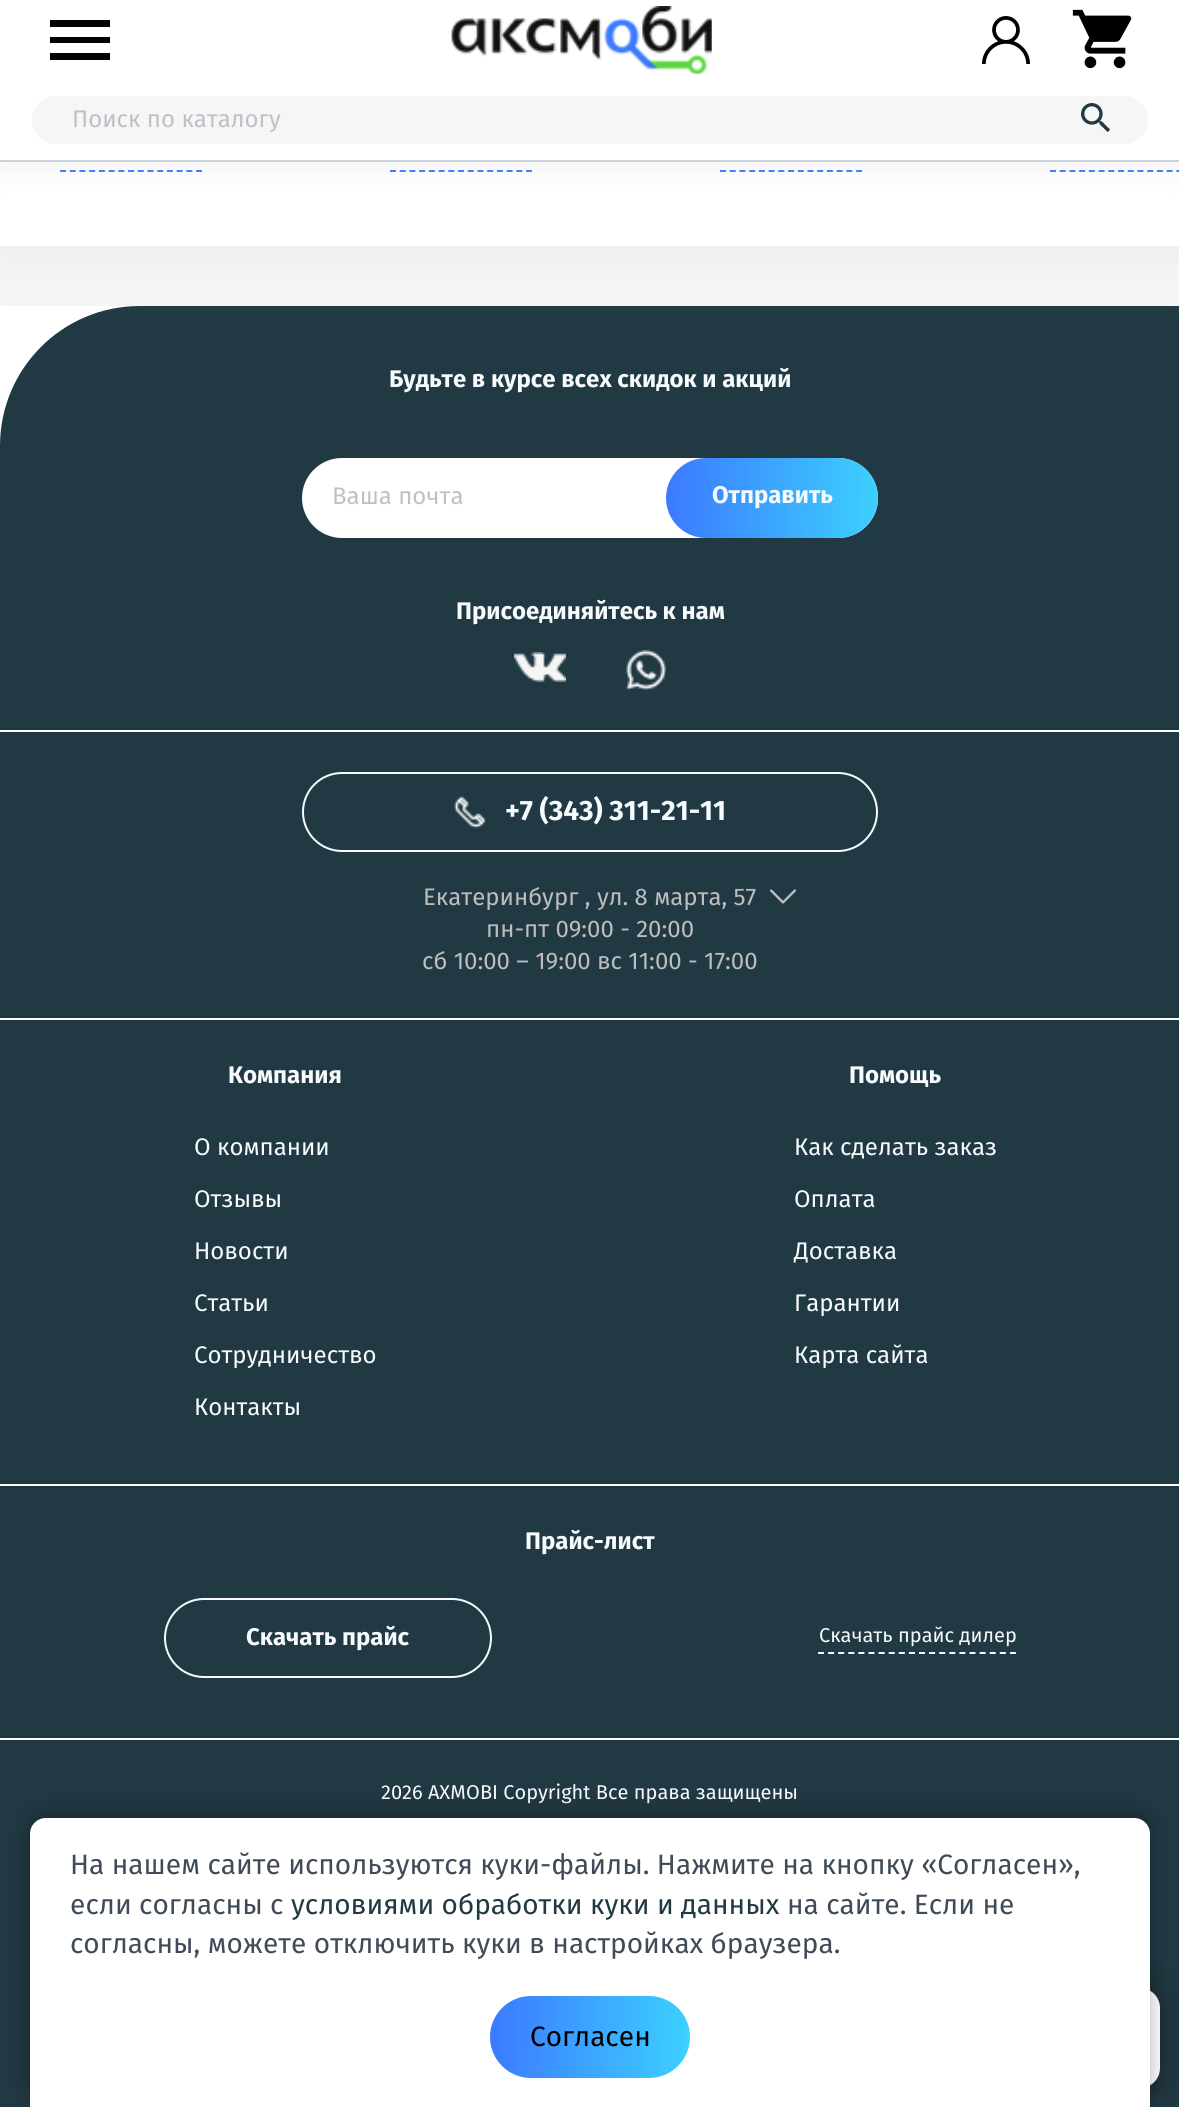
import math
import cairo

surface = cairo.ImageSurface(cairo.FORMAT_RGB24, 1179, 2107)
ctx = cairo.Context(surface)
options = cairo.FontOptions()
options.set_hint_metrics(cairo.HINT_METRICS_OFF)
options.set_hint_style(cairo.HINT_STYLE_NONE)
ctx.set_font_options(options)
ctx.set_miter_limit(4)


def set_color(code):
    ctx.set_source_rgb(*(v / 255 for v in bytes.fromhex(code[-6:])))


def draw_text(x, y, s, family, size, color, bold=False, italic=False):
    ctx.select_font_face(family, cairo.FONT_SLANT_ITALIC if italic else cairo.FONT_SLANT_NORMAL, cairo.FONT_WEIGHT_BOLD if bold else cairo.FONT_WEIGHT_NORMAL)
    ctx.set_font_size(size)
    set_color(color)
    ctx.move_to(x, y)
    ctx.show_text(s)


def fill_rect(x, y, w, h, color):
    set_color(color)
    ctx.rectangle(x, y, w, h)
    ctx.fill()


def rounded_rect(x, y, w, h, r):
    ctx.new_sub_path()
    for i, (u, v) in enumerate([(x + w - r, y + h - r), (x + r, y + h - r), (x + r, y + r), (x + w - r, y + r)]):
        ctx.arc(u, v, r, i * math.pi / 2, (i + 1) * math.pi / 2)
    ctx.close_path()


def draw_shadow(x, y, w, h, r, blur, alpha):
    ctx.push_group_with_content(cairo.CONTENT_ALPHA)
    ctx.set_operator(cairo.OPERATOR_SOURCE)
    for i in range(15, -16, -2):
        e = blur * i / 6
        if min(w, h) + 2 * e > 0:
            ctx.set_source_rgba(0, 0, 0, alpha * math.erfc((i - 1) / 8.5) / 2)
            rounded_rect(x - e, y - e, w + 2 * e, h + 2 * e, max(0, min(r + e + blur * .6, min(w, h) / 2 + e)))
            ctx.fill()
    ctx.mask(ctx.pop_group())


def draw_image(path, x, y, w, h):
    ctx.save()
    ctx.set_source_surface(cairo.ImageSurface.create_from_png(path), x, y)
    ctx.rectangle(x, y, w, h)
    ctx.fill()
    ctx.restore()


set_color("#ffffff")
ctx.paint()
fill_rect(0, 246, 1179, 60, "#f6f6f6")
set_color("#213943")
ctx.new_path()
ctx.move_to(140, 306)
ctx.line_to(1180, 306)
ctx.line_to(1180, 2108)
ctx.line_to(0, 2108)
ctx.line_to(0, 446)
ctx.curve_to(0, 368.5, 62.5, 306, 140, 306)
ctx.close_path()
ctx.fill()
set_color("#9d9d9d")
draw_shadow(0, -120, 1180, 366, 0, 40, 0.15)
fill_rect(0, 162, 1179, 84, "#ffffff")
ctx.new_path()
ctx.move_to(60, 171)
ctx.line_to(202, 171)
set_color("#3c7aff")
ctx.set_dash([6, 3.72])
ctx.stroke()
set_color("#ffffff")
rounded_rect(370, -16, 300, 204, 16)
ctx.fill()
ctx.new_path()
ctx.move_to(390, 171)
ctx.line_to(532, 171)
set_color("#3c7aff")
ctx.stroke()
set_color("#ffffff")
rounded_rect(700, -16, 300, 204, 16)
ctx.fill()
ctx.new_path()
ctx.move_to(720, 171)
ctx.line_to(862, 171)
set_color("#3c7aff")
ctx.stroke()
set_color("#ffffff")
ctx.new_path()
ctx.move_to(1046, -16)
ctx.line_to(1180, -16)
ctx.line_to(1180, 188)
ctx.line_to(1046, 188)
ctx.curve_to(1037, 188, 1030, 181, 1030, 172)
ctx.line_to(1030, 0)
ctx.curve_to(1030, -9, 1037, -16, 1046, -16)
ctx.close_path()
ctx.fill()
ctx.new_path()
ctx.move_to(1050, 171)
ctx.line_to(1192, 171)
set_color("#3c7aff")
ctx.stroke()
fill_rect(0, 160, 1179, 2, "#ccd3de")
set_color("#bcbcbc")
draw_shadow(0, 8, 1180, 160, 0, 14, 0.2)
fill_rect(0, 0, 1179, 160, "#ffffff")
set_color("#000000")
ctx.new_path()
ctx.move_to(50, 20)
ctx.line_to(50, 27)
ctx.line_to(110, 27)
ctx.line_to(110, 20)
ctx.close_path()
ctx.move_to(50, 43)
ctx.line_to(110, 43)
ctx.line_to(110, 37)
ctx.line_to(50, 37)
ctx.close_path()
ctx.move_to(50, 60)
ctx.line_to(110, 60)
ctx.line_to(110, 53)
ctx.line_to(50, 53)
ctx.close_path()
ctx.fill()
draw_image("assets/img1.png", 451, 6, 261, 68)
draw_image("assets/img2.png", 982, 16, 48, 48)
draw_image("assets/img3.png", 1072, 9, 60, 60)
set_color("#f6f6f6")
rounded_rect(32, 96, 1116, 48, 24)
ctx.fill()
draw_text(72, 127, "Поиск по каталогу", "Fira Sans", 24, "#bdc1c7")
draw_image("assets/img4.png", 1081, 103, 29, 29)
draw_text(389, 387, "Будьте в курсе всех скидок и акций", "Fira Sans", 24, "#f7fbfe", bold=True)
set_color("#ffffff")
rounded_rect(302, 458, 576, 80, 40)
ctx.fill()
draw_text(332, 504, "Ваша почта", "Fira Sans", 24, "#bdc1c7")
gradient = cairo.LinearGradient(665, 495, 879, 501)
gradient.add_color_stop_rgba(0.01, 0.235, 0.478, 1, 1)
gradient.add_color_stop_rgba(0.99, 0.235, 0.816, 1, 1)
ctx.set_source(gradient)
rounded_rect(666, 458, 212, 80, 40)
ctx.fill()
draw_text(712, 503, "Отправить", "Fira Sans", 24, "#f7fbfe", bold=True)
fill_rect(0, 730, 1179, 2, "#ffffff")
draw_text(456, 619, "Присоединяйтесь к нам", "Fira Sans", 24, "#f7fbfe", bold=True)
draw_image("assets/img5.png", 514, 652, 52, 30)
draw_image("assets/img6.png", 626, 650, 40, 40)
fill_rect(0, 1018, 1179, 2, "#ffffff")
rounded_rect(303, 773, 574, 78, 39)
set_color("#f7fbfe")
ctx.set_dash([])
ctx.stroke()
draw_image("assets/img7.png", 454, 796, 32, 32)
draw_text(505, 820, "+7 (343) 311-21-11", "Fira Sans", 28, "#f7fbfe", bold=True)
draw_text(423, 905, "Екатеринбург , ул. 8 марта, 57", "Fira Sans", 24, "#bdbdbd")
draw_text(486, 937, "пн-пт 09:00 - 20:00", "Fira Sans", 24, "#bdbdbd")
draw_text(422, 969, "сб 10:00 – 19:00 вс 11:00 - 17:00", "Fira Sans", 24, "#bdbdbd")
draw_image("assets/img8.png", 770, 889, 26, 15)
draw_text(228, 1083, "Компания", "Fira Sans", 24, "#f7fbfe", bold=True)
draw_text(194, 1155, "О компании", "Fira Sans", 24, "#f7fbfe")
draw_text(194, 1207, "Отзывы", "Fira Sans", 24, "#f7fbfe")
draw_text(194, 1259, "Новости", "Fira Sans", 24, "#f7fbfe")
draw_text(194, 1311, "Статьи", "Fira Sans", 24, "#f7fbfe")
draw_text(194, 1363, "Сотрудничество", "Fira Sans", 24, "#f7fbfe")
draw_text(194, 1415, "Контакты", "Fira Sans", 24, "#f7fbfe")
draw_text(849, 1083, "Помощь", "Fira Sans", 24, "#f7fbfe", bold=True)
draw_text(794, 1155, "Как сделать заказ", "Fira Sans", 24, "#f7fbfe")
draw_text(794, 1207, "Оплата", "Fira Sans", 24, "#f7fbfe")
draw_text(794, 1259, "Доставка", "Fira Sans", 24, "#f7fbfe")
draw_text(794, 1311, "Гарантии", "Fira Sans", 24, "#f7fbfe")
draw_text(794, 1363, "Карта сайта", "Fira Sans", 24, "#f7fbfe")
fill_rect(0, 1484, 1179, 2, "#ffffff")
fill_rect(0, 1738, 1179, 2, "#ffffff")
draw_text(525, 1549, "Прайс-лист", "Fira Sans", 24, "#f7fbfe", bold=True)
rounded_rect(165, 1599, 326, 78, 39)
ctx.stroke()
draw_text(246, 1645, "Скачать прайс", "Fira Sans", 24, "#f7fbfe", bold=True)
ctx.new_path()
ctx.move_to(818, 1653)
ctx.line_to(1016, 1653)
ctx.set_dash([6, 4.1])
ctx.stroke()
draw_text(819, 1642, "Скачать прайс дилер", "Fira Sans", 20, "#f7fbfe")
draw_text(381, 1799, "2026 AXMOBI Copyright Все права защищены", "Fira Sans", 20, "#f7fbfe")
set_color("#000000")
draw_shadow(1050, 1978, 120, 120, 30, 15, 0.2)
set_color("#ffffff")
rounded_rect(1060, 1988, 100, 100, 20)
ctx.fill()
set_color("#000000")
draw_shadow(30, 1814, 1120, 290, 16, 10, 0.3)
set_color("#ffffff")
ctx.new_path()
ctx.move_to(46, 1818)
ctx.line_to(1134, 1818)
ctx.curve_to(1143, 1818, 1150, 1825, 1150, 1834)
ctx.line_to(1150, 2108)
ctx.line_to(30, 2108)
ctx.line_to(30, 1834)
ctx.curve_to(30, 1825, 37, 1818, 46, 1818)
ctx.close_path()
ctx.fill()
draw_text(70, 1874, "На нашем сайте используются куки-файлы. Нажмите на кнопку «Согласен»,", "Fira Sans", 28, "#3f4b58")
draw_text(70, 1914, "если согласны с", "Fira Sans", 28, "#3f4b58")
draw_text(291, 1914, "условиями обработки куки и данных", "Fira Sans", 28, "#213943")
draw_text(787, 1914, "на сайте. Если не", "Fira Sans", 28, "#3f4b58")
draw_text(70, 1953, "согласны, можете отключить куки в настройках браузера.", "Fira Sans", 28, "#3f4b58")
gradient = cairo.LinearGradient(489, 2034, 691, 2040)
gradient.add_color_stop_rgba(0.01, 0.235, 0.478, 1, 1)
gradient.add_color_stop_rgba(0.99, 0.235, 0.816, 1, 1)
ctx.set_source(gradient)
rounded_rect(490, 1996, 200, 82, 41)
ctx.fill()
draw_text(530, 2046, "Согласен", "Fira Sans", 28, "#000000")
surface.write_to_png("output.png")
